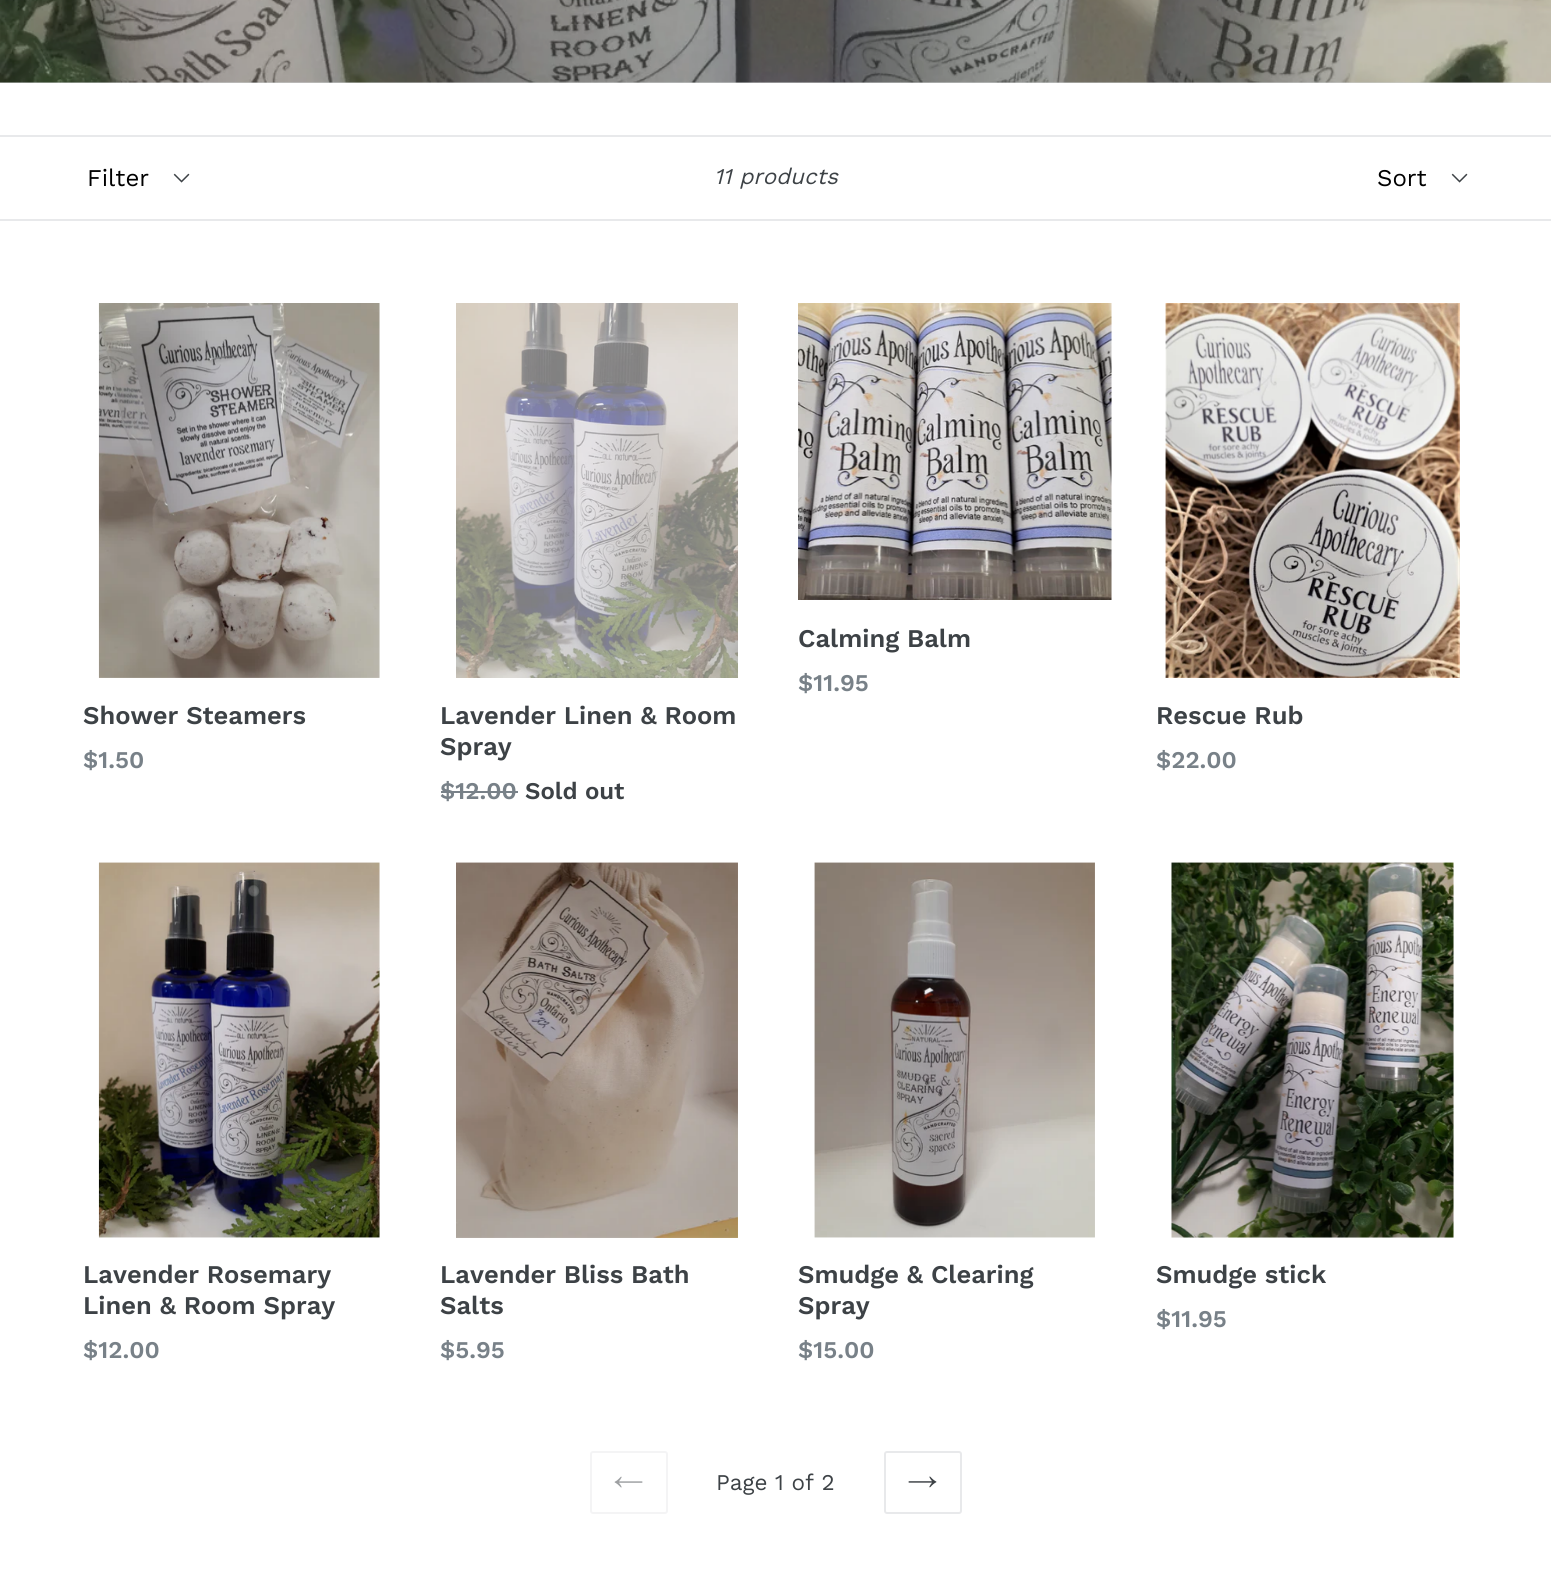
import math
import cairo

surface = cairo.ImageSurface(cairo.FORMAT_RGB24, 1551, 1583)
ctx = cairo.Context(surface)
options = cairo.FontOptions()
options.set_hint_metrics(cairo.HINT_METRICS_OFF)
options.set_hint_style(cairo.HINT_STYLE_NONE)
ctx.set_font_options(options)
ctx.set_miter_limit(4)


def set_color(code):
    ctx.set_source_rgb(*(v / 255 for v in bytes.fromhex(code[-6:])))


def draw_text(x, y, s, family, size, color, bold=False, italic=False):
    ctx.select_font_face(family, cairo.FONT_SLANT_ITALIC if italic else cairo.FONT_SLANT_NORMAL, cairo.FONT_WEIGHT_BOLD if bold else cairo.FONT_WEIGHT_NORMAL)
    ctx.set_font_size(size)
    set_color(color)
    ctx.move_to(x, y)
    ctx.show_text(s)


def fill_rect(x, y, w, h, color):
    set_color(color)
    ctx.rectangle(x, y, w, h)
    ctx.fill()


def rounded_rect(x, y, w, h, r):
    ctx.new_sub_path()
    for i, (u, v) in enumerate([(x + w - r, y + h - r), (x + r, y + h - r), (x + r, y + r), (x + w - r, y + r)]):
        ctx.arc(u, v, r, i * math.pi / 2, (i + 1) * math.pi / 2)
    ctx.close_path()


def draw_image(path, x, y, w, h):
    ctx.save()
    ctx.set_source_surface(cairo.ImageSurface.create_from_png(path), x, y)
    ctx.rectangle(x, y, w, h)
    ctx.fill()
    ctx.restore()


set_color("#ffffff")
ctx.paint()
fill_rect(0, 82, 1551, 1, "#cfd0d1")
draw_image("assets/img1.png", 0, 0, 1551, 83)
fill_rect(0, 135, 1551, 2, "#e8e9eb")
fill_rect(0, 219, 1551, 2, "#e8e9eb")
draw_image("assets/img2.png", 173, 173, 17, 10)
draw_text(87, 186, "Filter", "Work Sans", 24, "#000000")
draw_text(714, 184, "11 products", "Work Sans", 22.5, "#3d4246", italic=True)
draw_image("assets/img2.png", 1451, 173, 17, 10)
draw_text(1377, 186, "Sort", "Work Sans", 24, "#000000")
draw_image("assets/img3.png", 798, 303, 314, 297)
draw_text(798, 647, "Calming Balm", "Work Sans SemiBold", 25.5, "#3d4246")
draw_text(798, 691, "$11.95", "Work Sans SemiBold", 24, "#788188")
draw_image("assets/img4.png", 98, 303, 282, 375)
draw_text(83, 724, "Shower Steamers", "Work Sans SemiBold", 25.5, "#3d4246")
draw_text(83, 768, "$1.50", "Work Sans SemiBold", 24, "#788188")
draw_image("assets/img5.png", 456, 303, 282, 375)
draw_text(440, 724, "Lavender Linen & Room", "Work Sans SemiBold", 25.5, "#3d4246")
draw_text(440, 755, "Spray", "Work Sans SemiBold", 25.5, "#3d4246")
draw_text(440, 799, "$12.00", "Work Sans SemiBold", 24, "#788188")
fill_rect(441, 791, 77, 2, "#788188")
draw_text(525, 799, "Sold out", "Work Sans SemiBold", 24, "#3d4246")
draw_image("assets/img6.png", 1165, 303, 295, 375)
draw_text(1156, 724, "Rescue Rub", "Work Sans SemiBold", 25.5, "#3d4246")
draw_text(1156, 768, "$22.00", "Work Sans SemiBold", 24, "#788188")
draw_image("assets/img7.png", 98, 862, 282, 376)
draw_text(83, 1283, "Lavender Rosemary", "Work Sans SemiBold", 25.5, "#3d4246")
draw_text(83, 1314, "Linen & Room Spray", "Work Sans SemiBold", 25.5, "#3d4246")
draw_text(83, 1358, "$12.00", "Work Sans SemiBold", 24, "#788188")
draw_image("assets/img8.png", 456, 862, 282, 376)
draw_text(440, 1283, "Lavender Bliss Bath", "Work Sans SemiBold", 25.5, "#3d4246")
draw_text(440, 1314, "Salts", "Work Sans SemiBold", 25.5, "#3d4246")
draw_text(440, 1358, "$5.95", "Work Sans SemiBold", 24, "#788188")
draw_image("assets/img9.png", 814, 862, 281, 376)
draw_text(798, 1283, "Smudge & Clearing", "Work Sans SemiBold", 25.5, "#3d4246")
draw_text(798, 1314, "Spray", "Work Sans SemiBold", 25.5, "#3d4246")
draw_text(798, 1358, "$15.00", "Work Sans SemiBold", 24, "#788188")
draw_image("assets/img10.png", 1171, 862, 283, 376)
draw_text(1156, 1283, "Smudge stick", "Work Sans SemiBold", 25.5, "#3d4246")
draw_text(1156, 1327, "$11.95", "Work Sans SemiBold", 24, "#788188")
rounded_rect(591, 1452, 76, 61, 2)
set_color("#f4f4f5")
ctx.stroke()
draw_image("assets/img11.png", 614, 1476, 29, 12)
draw_text(716, 1490, "Page 1 of 2", "Work Sans", 22.5, "#3d4246")
rounded_rect(885, 1452, 76, 61, 2)
set_color("#e8e9eb")
ctx.stroke()
draw_image("assets/img12.png", 908, 1476, 29, 12)
surface.write_to_png("output.png")
